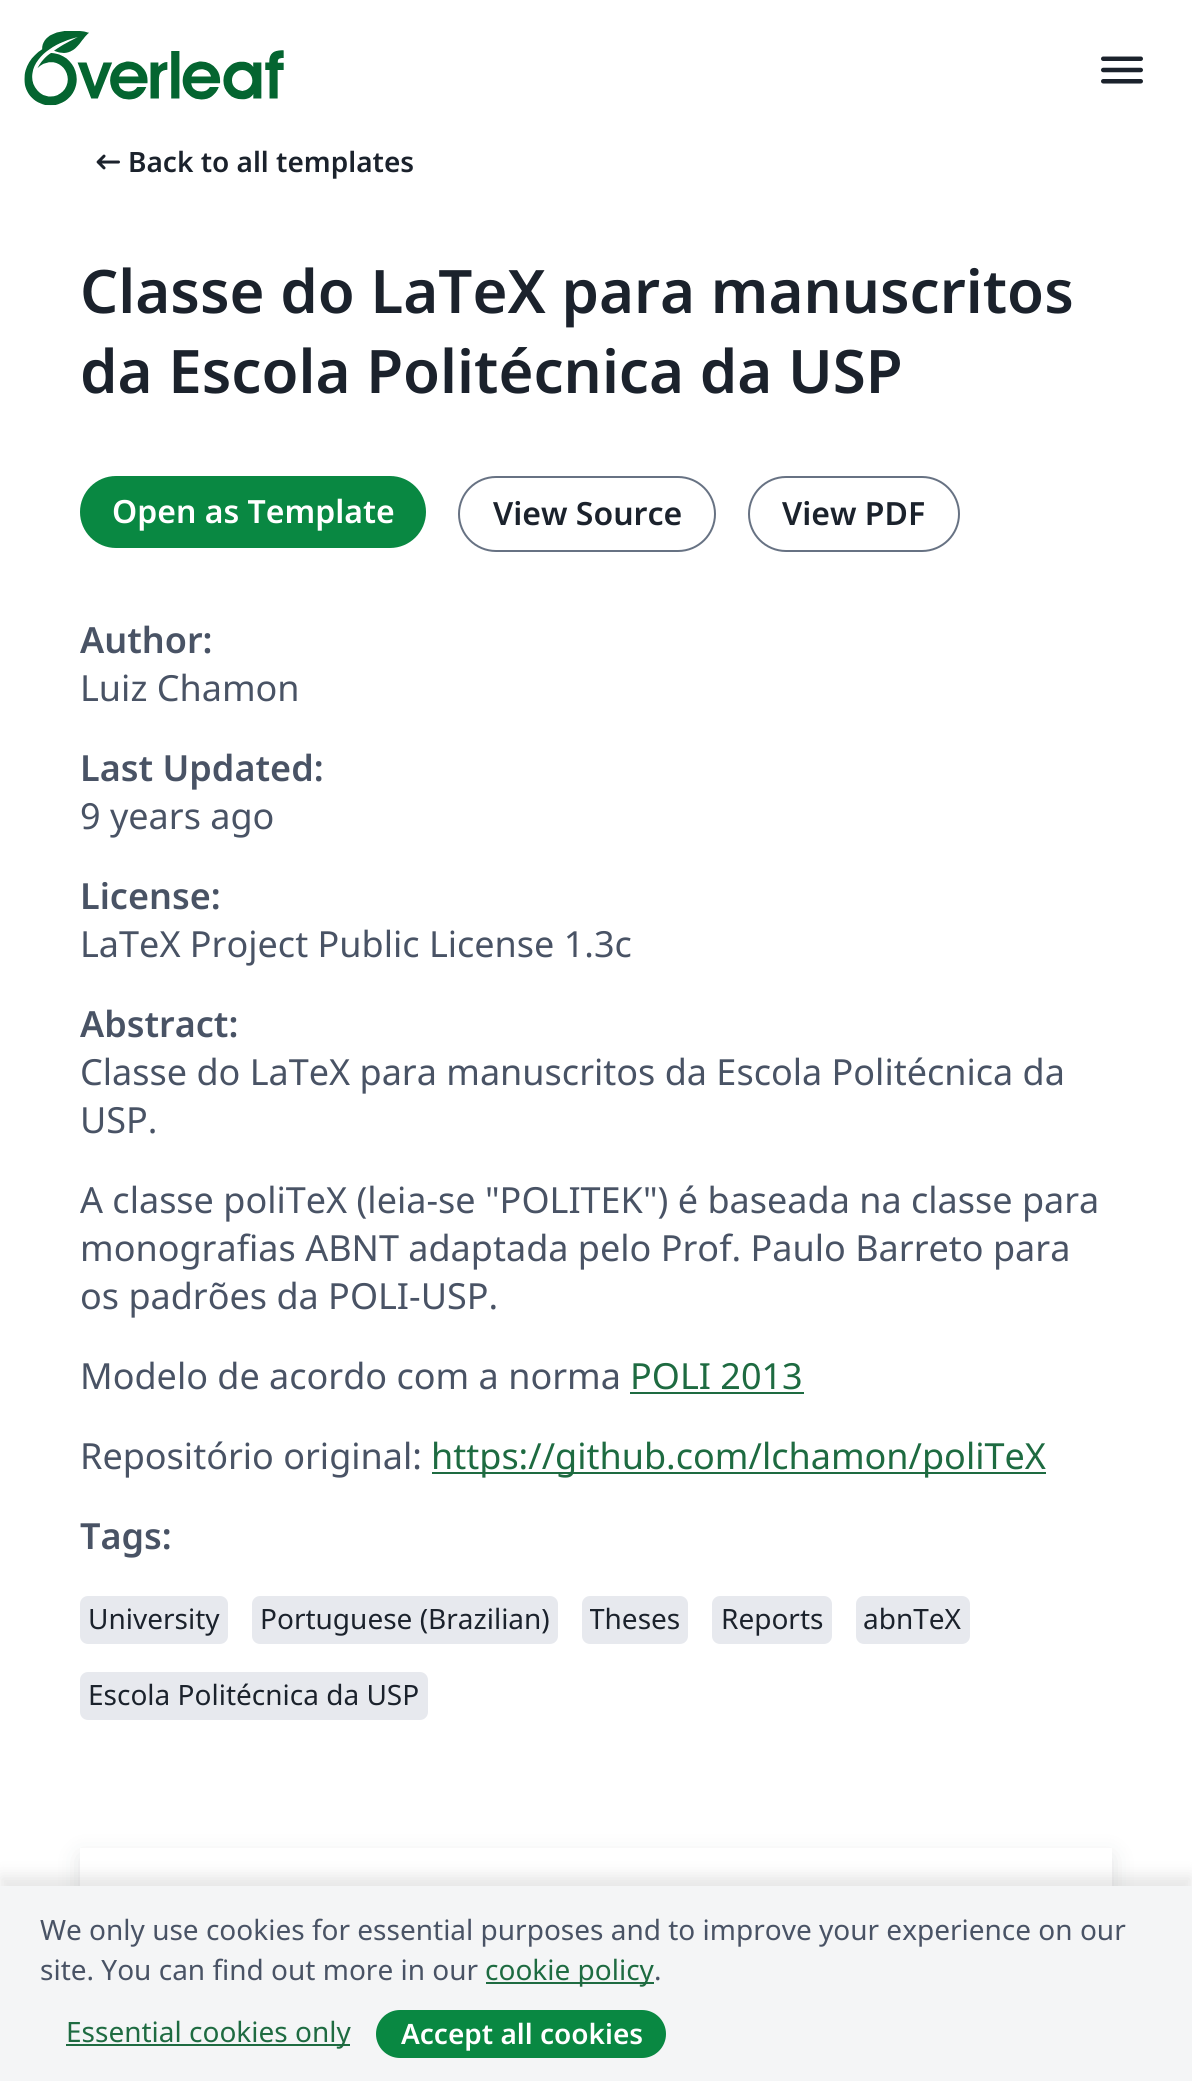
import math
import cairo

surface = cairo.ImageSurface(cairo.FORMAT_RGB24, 1192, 2081)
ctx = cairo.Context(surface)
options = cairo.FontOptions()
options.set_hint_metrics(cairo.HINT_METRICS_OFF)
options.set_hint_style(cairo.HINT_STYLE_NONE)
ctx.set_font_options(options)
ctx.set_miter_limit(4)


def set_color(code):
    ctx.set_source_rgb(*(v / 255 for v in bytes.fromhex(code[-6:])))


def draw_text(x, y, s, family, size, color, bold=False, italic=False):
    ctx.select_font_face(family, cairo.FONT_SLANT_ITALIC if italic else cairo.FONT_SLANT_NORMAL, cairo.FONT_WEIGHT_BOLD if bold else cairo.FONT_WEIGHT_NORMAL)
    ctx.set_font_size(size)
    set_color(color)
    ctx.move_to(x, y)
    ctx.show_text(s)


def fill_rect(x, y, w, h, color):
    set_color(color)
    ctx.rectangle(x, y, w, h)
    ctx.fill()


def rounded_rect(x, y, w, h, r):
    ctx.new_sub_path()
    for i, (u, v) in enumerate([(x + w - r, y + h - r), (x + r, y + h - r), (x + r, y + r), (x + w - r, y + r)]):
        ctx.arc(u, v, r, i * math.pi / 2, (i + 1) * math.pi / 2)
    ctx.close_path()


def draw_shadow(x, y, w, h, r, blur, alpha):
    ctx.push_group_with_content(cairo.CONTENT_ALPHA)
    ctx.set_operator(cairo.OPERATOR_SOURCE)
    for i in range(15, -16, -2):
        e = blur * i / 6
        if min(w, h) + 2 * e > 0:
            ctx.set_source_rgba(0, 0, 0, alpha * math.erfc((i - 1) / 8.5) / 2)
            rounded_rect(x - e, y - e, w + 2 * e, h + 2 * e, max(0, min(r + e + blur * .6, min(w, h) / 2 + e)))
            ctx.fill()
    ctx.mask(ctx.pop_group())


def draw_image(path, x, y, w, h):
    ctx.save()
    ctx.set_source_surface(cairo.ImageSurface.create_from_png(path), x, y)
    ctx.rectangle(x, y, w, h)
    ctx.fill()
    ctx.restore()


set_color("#ffffff")
ctx.paint()
draw_image("assets/img1.png", 24, 31, 260, 75)
draw_image("assets/img2.png", 1101, 56, 42, 28)
draw_image("assets/img3.png", 96, 154, 24, 16)
draw_text(128, 172, "Back to all templates", "Noto Sans SemiBold", 28, "#1b222c")
draw_text(80, 313, "Classe do LaTeX para manuscritos", "Noto Sans SemiBold", 60, "#1b222c")
draw_text(80, 393, "da Escola Politécnica da USP", "Noto Sans SemiBold", 60, "#1b222c")
set_color("#098842")
rounded_rect(80, 476, 346, 72, 36)
ctx.fill()
draw_text(112, 523, "Open as Template", "Noto Sans SemiBold", 32, "#ffffff")
rounded_rect(459, 477, 256, 74, 37)
set_color("#677283")
ctx.stroke()
draw_text(493, 525, "View Source", "Noto Sans SemiBold", 32, "#1b222c")
rounded_rect(749, 477, 210, 74, 37)
set_color("#677283")
ctx.stroke()
draw_text(782, 525, "View PDF", "Noto Sans SemiBold", 32, "#1b222c")
draw_text(80, 653, "Author:", "Noto Sans SemiBold", 36, "#495365")
draw_text(80, 701, "Luiz Chamon", "Noto Sans", 36, "#495365")
draw_text(80, 781, "Last Updated:", "Noto Sans SemiBold", 36, "#495365")
draw_text(80, 829, "9 years ago", "Noto Sans", 36, "#495365")
draw_text(80, 909, "License:", "Noto Sans SemiBold", 36, "#495365")
draw_text(80, 957, "LaTeX Project Public License 1.3c", "Noto Sans", 36, "#495365")
draw_text(80, 1037, "Abstract:", "Noto Sans SemiBold", 36, "#495365")
draw_text(80, 1085, "Classe do LaTeX para manuscritos da Escola Politécnica da", "Noto Sans", 36, "#495365")
draw_text(80, 1133, "USP.", "Noto Sans", 36, "#495365")
draw_text(80, 1213, "A classe poliTeX (leia-se \"POLITEK\") é baseada na classe para", "Noto Sans", 36, "#495365")
draw_text(80, 1261, "monografias ABNT adaptada pelo Prof. Paulo Barreto para", "Noto Sans", 36, "#495365")
draw_text(80, 1309, "os padrões da POLI-USP.", "Noto Sans", 36, "#495365")
draw_text(80, 1389, "Modelo de acordo com a norma", "Noto Sans", 36, "#495365")
draw_text(630, 1389, "POLI 2013", "Noto Sans", 36, "#1e6b41")
fill_rect(630, 1392, 174, 2, "#1e6b41")
draw_text(80, 1469, "Repositório original:", "Noto Sans", 36, "#495365")
fill_rect(432, 1472, 614, 2, "#1e6b41")
draw_text(431, 1469, "https://github.com/lchamon/poliTeX", "Noto Sans", 36, "#1e6b41")
draw_text(80, 1549, "Tags:", "Noto Sans SemiBold", 36, "#495365")
set_color("#e7e9ee")
rounded_rect(80, 1596, 148, 48, 8)
ctx.fill()
draw_text(88, 1629, "University", "Noto Sans", 28, "#1b222c")
set_color("#e7e9ee")
rounded_rect(252, 1596, 306, 48, 8)
ctx.fill()
draw_text(260, 1629, "Portuguese (Brazilian)", "Noto Sans", 28, "#1b222c")
set_color("#e7e9ee")
rounded_rect(582, 1596, 106, 48, 8)
ctx.fill()
ctx.save()
ctx.rectangle(590, 1596, 90, 48)
ctx.clip()
draw_text(589, 1629, "Theses", "Noto Sans", 28, "#1b222c")
ctx.restore()
rounded_rect(712, 1596, 120, 48, 8)
ctx.fill()
draw_text(721, 1629, "Reports", "Noto Sans", 28, "#1b222c")
set_color("#e7e9ee")
rounded_rect(856, 1596, 114, 48, 8)
ctx.fill()
draw_text(863, 1629, "abnTeX", "Noto Sans", 28, "#1b222c")
set_color("#e7e9ee")
rounded_rect(80, 1672, 348, 48, 8)
ctx.fill()
draw_text(88, 1705, "Escola Politécnica da USP", "Noto Sans", 28, "#1b222c")
ctx.save()
ctx.set_fill_rule(cairo.FILL_RULE_EVEN_ODD)
ctx.new_path()
ctx.move_to(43, 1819)
ctx.line_to(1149, 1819)
ctx.line_to(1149, 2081)
ctx.line_to(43, 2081)
ctx.close_path()
ctx.move_to(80, 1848)
ctx.line_to(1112, 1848)
ctx.line_to(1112, 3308)
ctx.line_to(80, 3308)
ctx.close_path()
ctx.clip()
set_color("#1e2530")
draw_shadow(80, 1856, 1032, 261, 0, 12, 0.12)
ctx.restore()
set_color("#000000")
draw_shadow(0, 1876, 1192, 196, 0, 8, 0.1)
fill_rect(0, 1886, 1192, 195, "#f4f5f6")
draw_text(40, 1940, "We only use cookies for essential purposes and to improve your experience on our", "Noto Sans", 28, "#495365")
draw_text(40, 1980, "site. You can find out more in our", "Noto Sans", 28, "#495365")
fill_rect(486, 1982, 168, 2, "#1e6b41")
draw_text(485, 1980, "cookie policy", "Noto Sans", 28, "#1e6b41")
draw_text(654, 1980, ".", "Noto Sans", 28, "#495365")
fill_rect(66, 2044, 284, 2, "#1e6b41")
draw_text(66, 2042, "Essential cookies only", "Noto Sans", 28, "#1e6b41")
set_color("#098842")
rounded_rect(376, 2010, 290, 48, 24)
ctx.fill()
draw_text(401, 2044, "Accept all cookies", "Noto Sans SemiBold", 28, "#ffffff")
surface.write_to_png("output.png")
